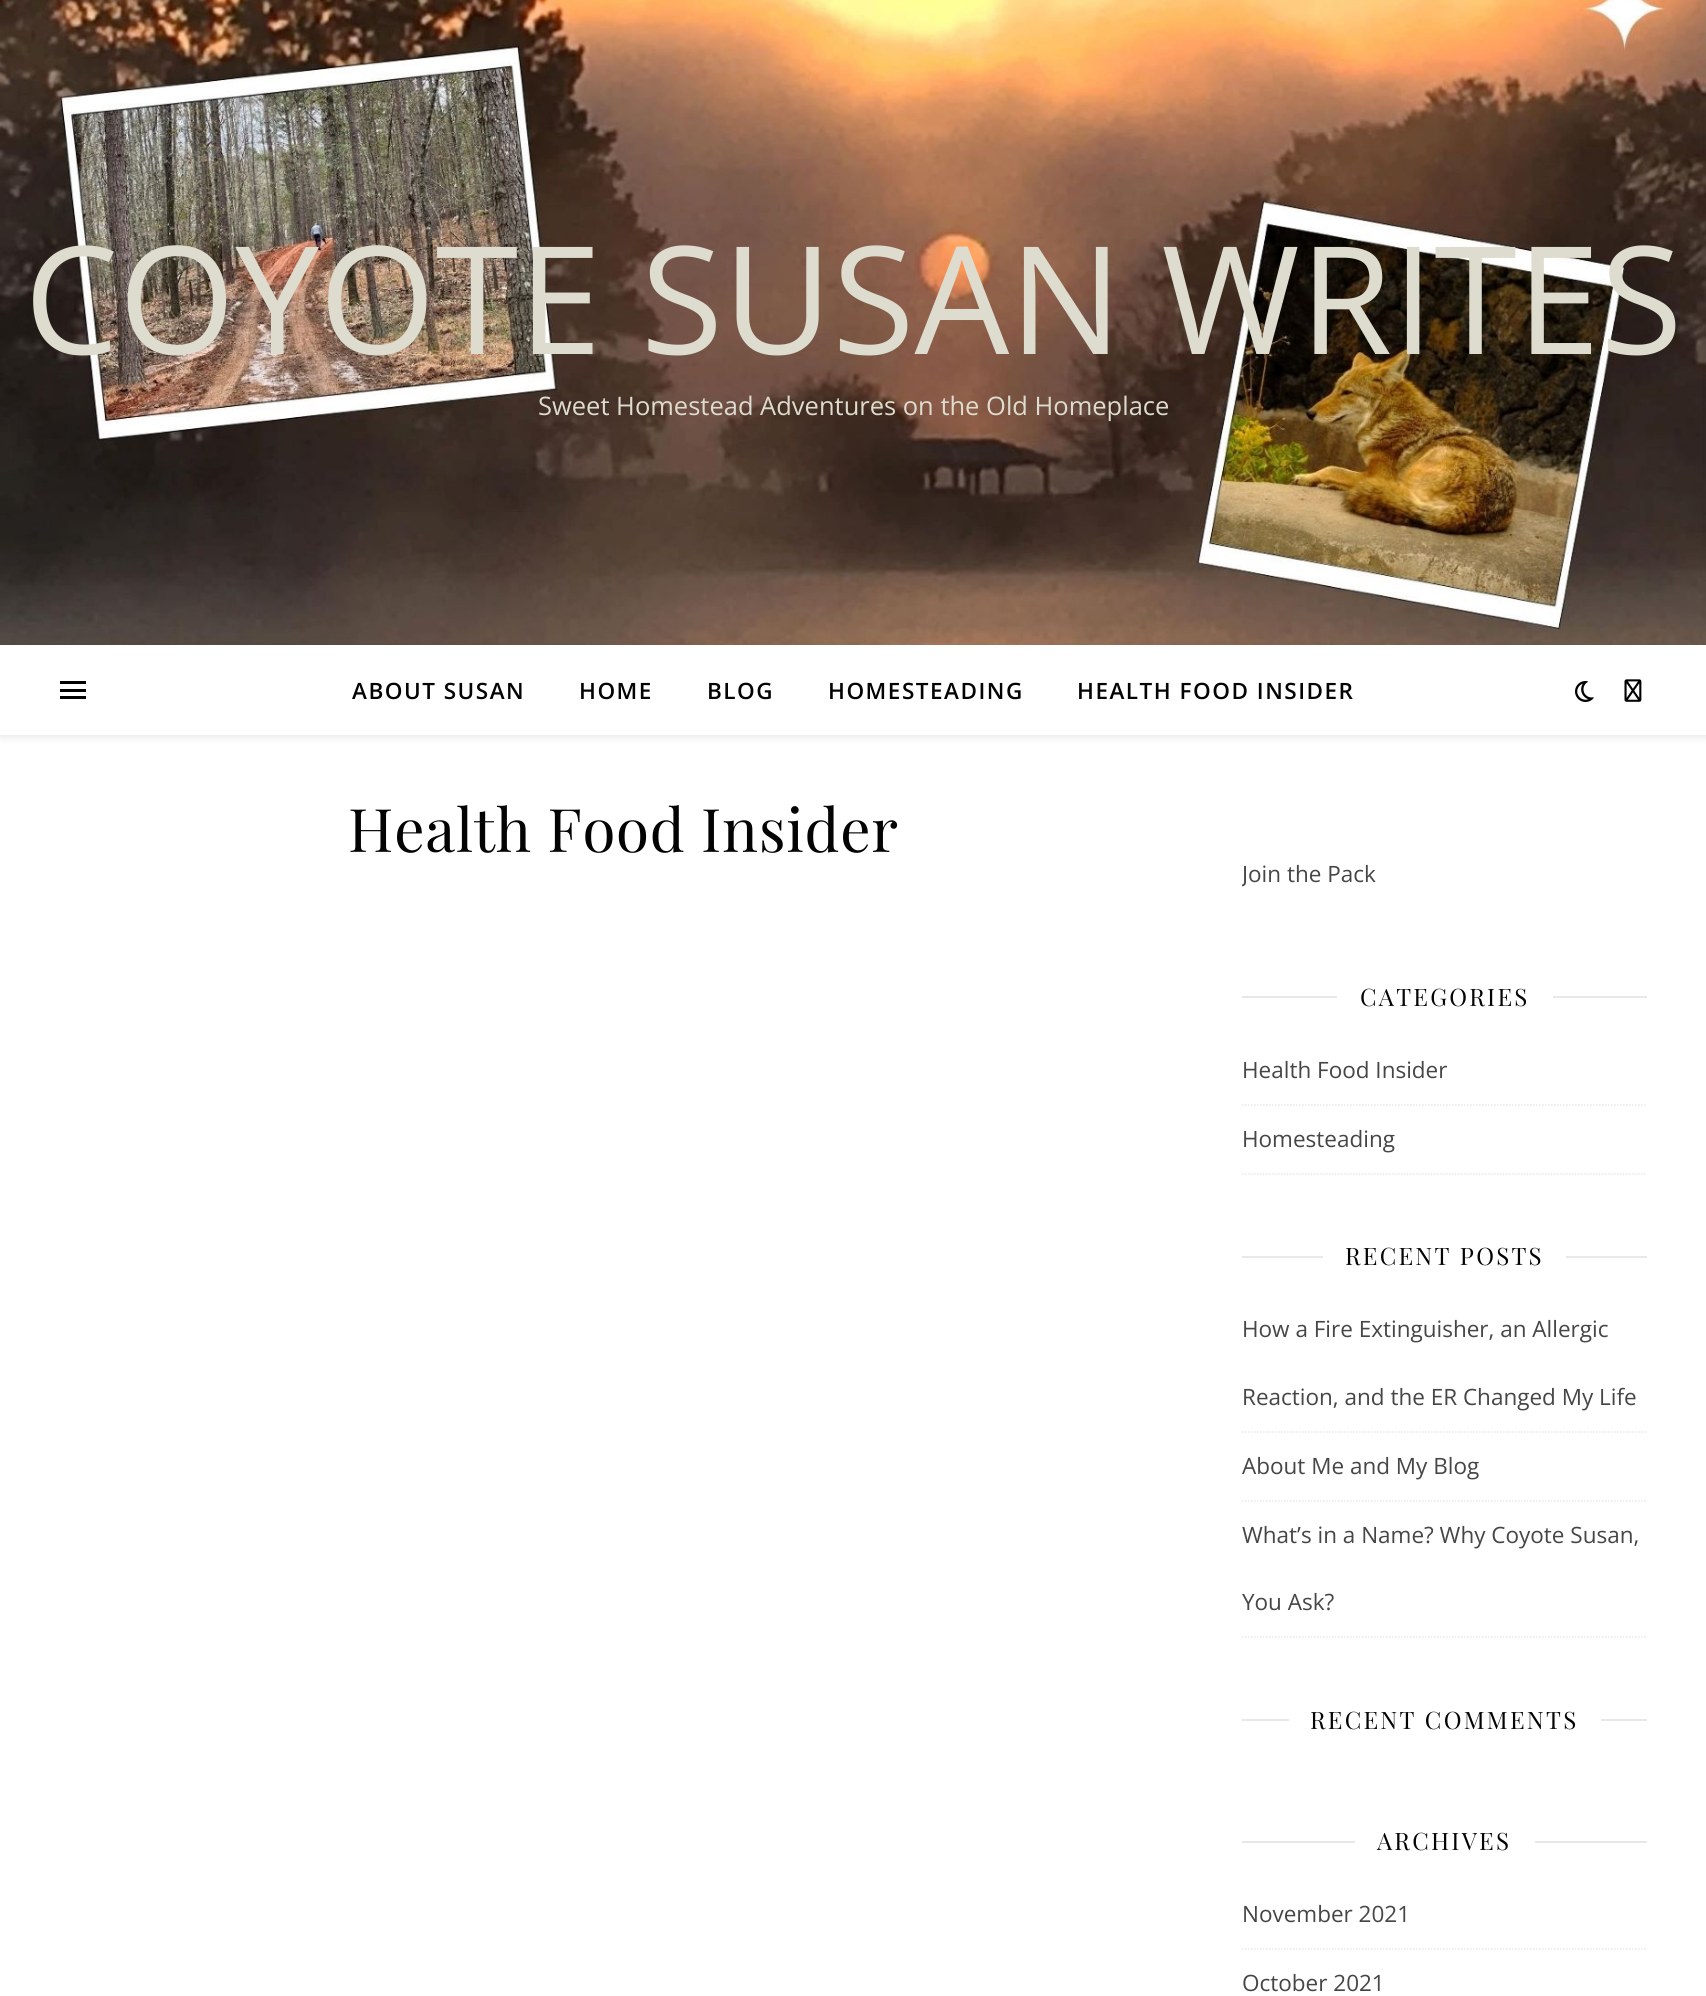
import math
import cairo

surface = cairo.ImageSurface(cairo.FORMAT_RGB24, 1706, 1996)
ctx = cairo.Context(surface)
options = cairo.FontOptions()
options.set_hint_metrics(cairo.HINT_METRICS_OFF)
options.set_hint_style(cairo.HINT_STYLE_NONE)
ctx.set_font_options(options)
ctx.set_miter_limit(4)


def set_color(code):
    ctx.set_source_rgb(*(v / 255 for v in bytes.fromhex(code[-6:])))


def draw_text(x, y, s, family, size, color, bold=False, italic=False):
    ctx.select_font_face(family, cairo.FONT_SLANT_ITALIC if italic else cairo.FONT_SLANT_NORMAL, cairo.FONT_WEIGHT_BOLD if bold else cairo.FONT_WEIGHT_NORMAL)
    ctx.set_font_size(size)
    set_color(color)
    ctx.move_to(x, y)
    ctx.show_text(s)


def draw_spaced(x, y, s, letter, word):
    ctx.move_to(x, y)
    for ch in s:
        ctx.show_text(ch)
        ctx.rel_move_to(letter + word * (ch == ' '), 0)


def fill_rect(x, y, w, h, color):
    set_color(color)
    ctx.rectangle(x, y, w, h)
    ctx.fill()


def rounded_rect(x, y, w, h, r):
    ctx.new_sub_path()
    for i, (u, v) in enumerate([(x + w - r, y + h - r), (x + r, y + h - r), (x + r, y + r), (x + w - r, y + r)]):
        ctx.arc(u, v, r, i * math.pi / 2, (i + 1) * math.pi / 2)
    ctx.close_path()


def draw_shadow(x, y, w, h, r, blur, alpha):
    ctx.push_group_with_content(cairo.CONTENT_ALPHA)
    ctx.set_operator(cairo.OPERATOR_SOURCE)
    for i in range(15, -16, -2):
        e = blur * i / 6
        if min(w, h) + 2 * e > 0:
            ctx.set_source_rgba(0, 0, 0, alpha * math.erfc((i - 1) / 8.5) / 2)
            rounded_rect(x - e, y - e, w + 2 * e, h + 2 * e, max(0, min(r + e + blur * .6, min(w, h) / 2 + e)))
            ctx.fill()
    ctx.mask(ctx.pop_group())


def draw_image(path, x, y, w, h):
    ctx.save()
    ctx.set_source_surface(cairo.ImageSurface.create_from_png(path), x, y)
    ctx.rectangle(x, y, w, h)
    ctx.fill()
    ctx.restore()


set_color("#ffffff")
ctx.paint()
draw_image("assets/img1.png", 0, 0, 1706, 645)
draw_text(24, 354, "COYOTE SUSAN WRITES", "Open Sans", 150, "#dddcce")
draw_text(538, 415, "Sweet Homestead Adventures on the Old Homeplace", "Open Sans", 25.5, "#dddcce")
set_color("#000000")
draw_shadow(0, 647, 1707, 90, 0, 4, 0.1)
fill_rect(0, 645, 1706, 90, "#ffffff")
fill_rect(60, 681, 26, 3, "#000000")
fill_rect(60, 689, 26, 3, "#000000")
fill_rect(60, 696, 26, 3, "#000000")
ctx.select_font_face("Open Sans SemiBold")
ctx.set_font_size(22.5)
set_color("#030303")
draw_spaced(352, 699, "ABOUT SUSAN", 1.5, 0)
draw_spaced(579, 699, "HOME", 1.5, 0)
draw_spaced(707, 699, "BLOG", 1.5, 0)
draw_spaced(828, 699, "HOMESTEADING", 1.5, 0)
draw_spaced(1077, 699, "HEALTH FOOD INSIDER", 1.5, 0)
draw_image("assets/img2.png", 1575, 681, 19, 21)
draw_image("assets/img3.png", 1624, 679, 18, 23)
ctx.select_font_face("Playfair Display")
ctx.set_font_size(60)
draw_spaced(348, 852, "Health Food Insider", 0.75, 0)
ctx.save()
ctx.rectangle(1242, 855, 405, 60)
ctx.clip()
draw_text(1242, 882, "Join the Pack", "Open Sans", 22.5, "#464646")
ctx.restore()
fill_rect(1242, 996, 95, 2, "#e8e8e8")
ctx.set_font_size(24)
set_color("#030303")
draw_spaced(1360, 1006, "CATEGORIES", 2.25, 0)
fill_rect(1553, 996, 94, 2, "#e8e8e8")
ctx.new_path()
ctx.move_to(1242, 1105)
ctx.line_to(1647, 1105)
ctx.set_line_width(1.5)
ctx.set_dash([1.5, 1.5])
ctx.stroke()
draw_text(1242, 1078, "Health Food Insider", "Open Sans", 22.5, "#464646")
ctx.new_path()
ctx.move_to(1242, 1174)
ctx.line_to(1647, 1174)
set_color("#e8e8e8")
ctx.stroke()
draw_text(1242, 1147, "Homesteading", "Open Sans", 22.5, "#464646")
fill_rect(1242, 1256, 81, 2, "#e8e8e8")
ctx.select_font_face("Playfair Display")
ctx.set_font_size(24)
set_color("#030303")
draw_spaced(1345, 1265, "RECENT POSTS", 2.25, 0)
fill_rect(1566, 1256, 81, 2, "#e8e8e8")
ctx.new_path()
ctx.move_to(1242, 1432)
ctx.line_to(1647, 1432)
ctx.stroke()
draw_text(1242, 1337, "How a Fire Extinguisher, an Allergic", "Open Sans", 22.5, "#464646")
draw_text(1242, 1405, "Reaction, and the ER Changed My Life", "Open Sans", 22.5, "#464646")
ctx.new_path()
ctx.move_to(1242, 1501)
ctx.line_to(1647, 1501)
set_color("#e8e8e8")
ctx.stroke()
draw_text(1242, 1474, "About Me and My Blog", "Open Sans", 22.5, "#464646")
ctx.new_path()
ctx.move_to(1242, 1637)
ctx.line_to(1647, 1637)
set_color("#e8e8e8")
ctx.stroke()
draw_text(1242, 1543, "What’s in a Name? Why Coyote Susan,", "Open Sans", 22.5, "#464646")
draw_text(1242, 1610, "You Ask?", "Open Sans", 22.5, "#464646")
fill_rect(1242, 1719, 47, 2, "#e8e8e8")
ctx.select_font_face("Playfair Display")
ctx.set_font_size(24)
set_color("#030303")
draw_spaced(1310, 1729, "RECENT COMMENTS", 2.25, 0)
fill_rect(1601, 1719, 46, 2, "#e8e8e8")
fill_rect(1242, 1841, 113, 2, "#e8e8e8")
set_color("#030303")
draw_spaced(1377, 1850, "ARCHIVES", 2.25, 0)
fill_rect(1535, 1841, 112, 2, "#e8e8e8")
ctx.new_path()
ctx.move_to(1242, 1949)
ctx.line_to(1647, 1949)
ctx.stroke()
draw_text(1242, 1922, "November 2021", "Open Sans", 22.5, "#464646")
draw_text(1242, 1991, "October 2021", "Open Sans", 22.5, "#464646")
surface.write_to_png("output.png")
